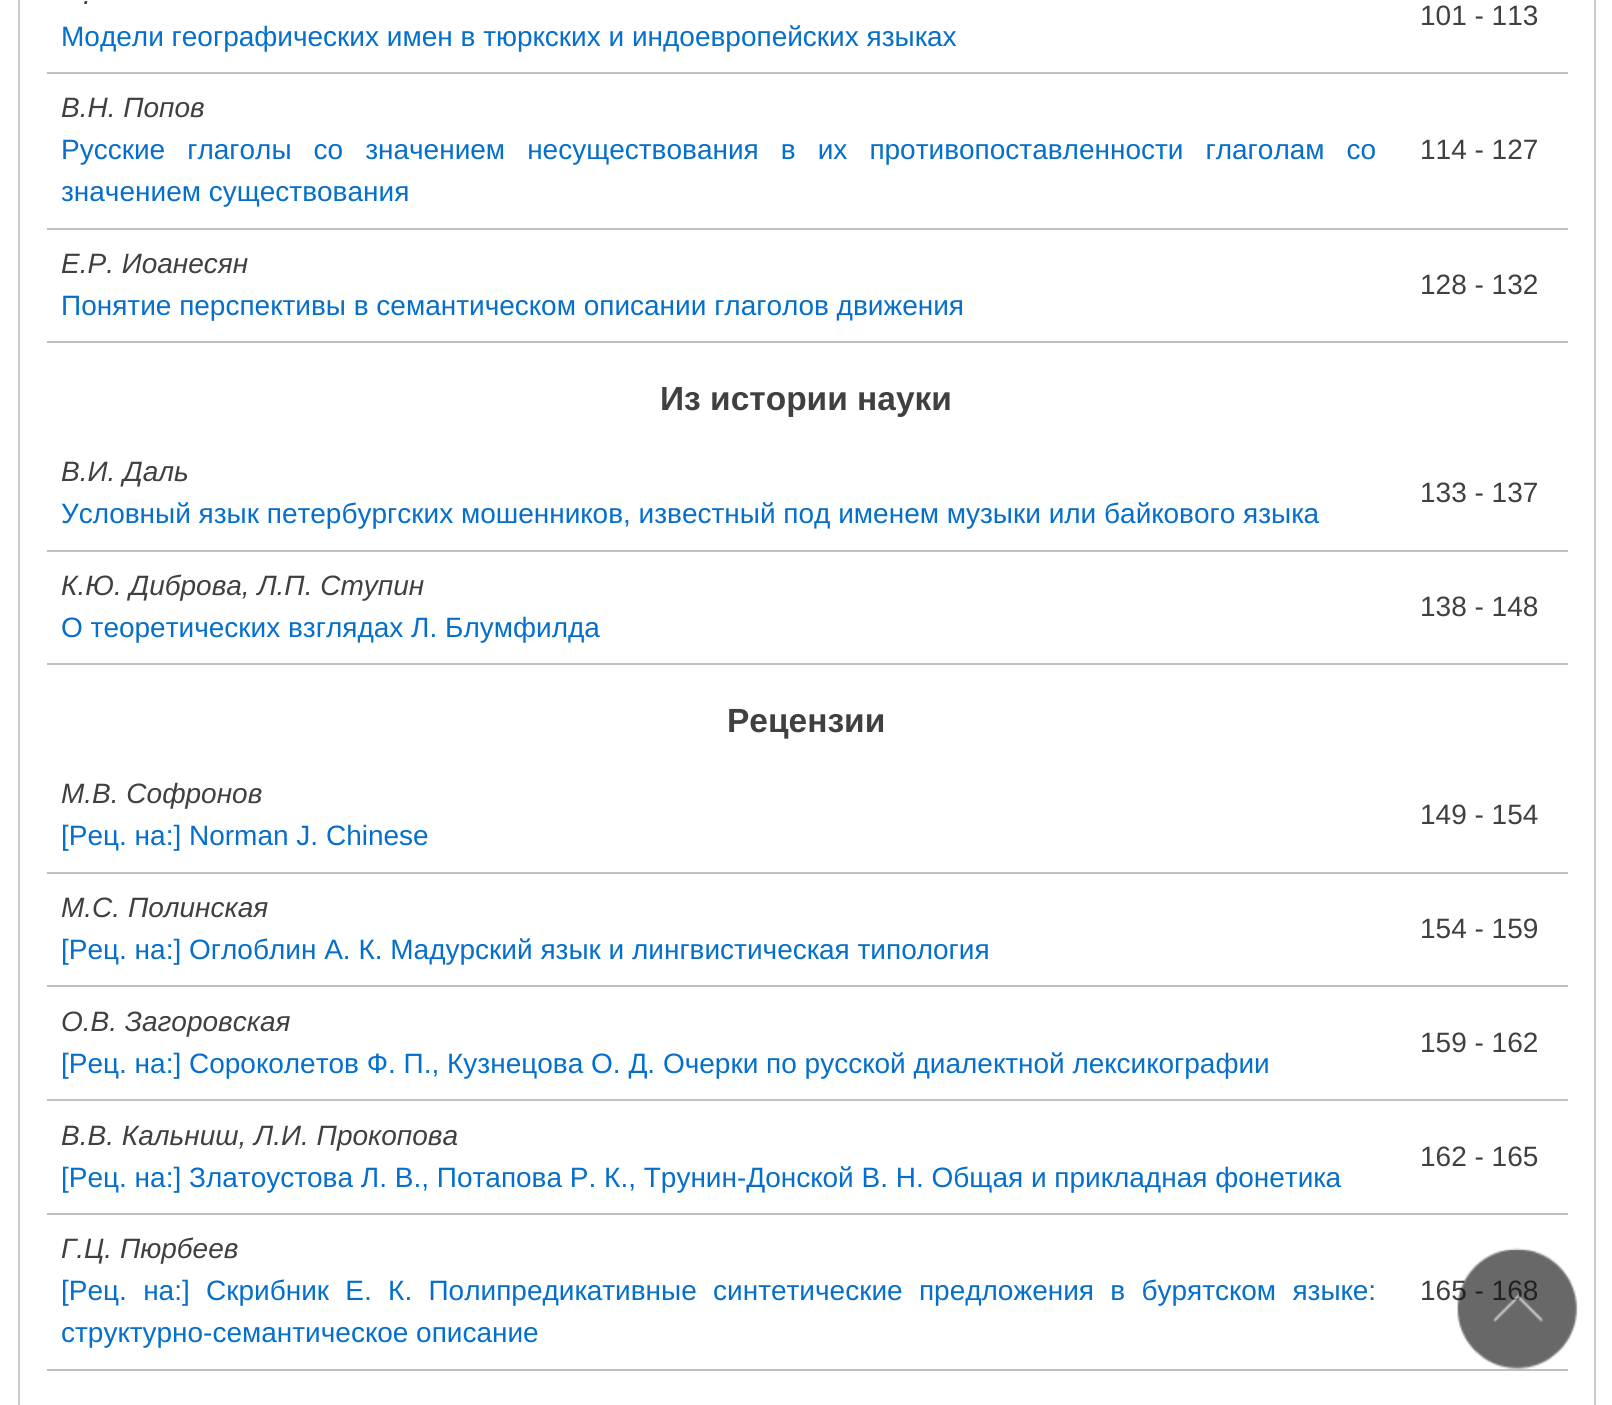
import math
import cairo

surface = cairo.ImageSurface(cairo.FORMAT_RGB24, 1612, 1405)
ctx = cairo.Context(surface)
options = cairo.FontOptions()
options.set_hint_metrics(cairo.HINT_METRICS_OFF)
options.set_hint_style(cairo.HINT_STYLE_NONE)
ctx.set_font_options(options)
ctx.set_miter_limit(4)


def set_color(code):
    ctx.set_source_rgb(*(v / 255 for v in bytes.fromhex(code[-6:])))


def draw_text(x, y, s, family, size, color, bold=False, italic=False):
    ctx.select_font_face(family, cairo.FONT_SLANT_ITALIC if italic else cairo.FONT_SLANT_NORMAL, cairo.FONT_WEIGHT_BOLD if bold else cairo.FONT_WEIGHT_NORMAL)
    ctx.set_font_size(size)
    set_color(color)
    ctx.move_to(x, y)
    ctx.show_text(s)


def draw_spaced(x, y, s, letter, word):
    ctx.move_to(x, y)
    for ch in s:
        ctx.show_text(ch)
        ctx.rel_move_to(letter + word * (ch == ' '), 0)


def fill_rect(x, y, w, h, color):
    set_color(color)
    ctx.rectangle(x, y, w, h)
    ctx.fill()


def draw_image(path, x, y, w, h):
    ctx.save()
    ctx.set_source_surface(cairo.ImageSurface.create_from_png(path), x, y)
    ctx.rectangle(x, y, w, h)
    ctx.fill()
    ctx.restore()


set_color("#ffffff")
ctx.paint()
ctx.rectangle(19, -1, 1576, 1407)
set_color("#cccccc")
ctx.stroke()
draw_text(83, 4, ".", "Liberation Sans", 28, "#404040", italic=True)
draw_text(61, 46, "Модели географических имен в тюркских и индоевропейских языках", "Liberation Sans", 28, "#056fcb")
fill_rect(47, 72, 1521, 2, "#c0c0c0")
draw_text(1420, 25, "101 - 113", "Liberation Sans", 28, "#404040")
draw_text(61, 117, "В.Н. Попов", "Liberation Sans", 28, "#404040", italic=True)
ctx.select_font_face("Liberation Sans")
set_color("#056fcb")
draw_spaced(61, 159, "Русские глаголы со значением несуществования в их противопоставленности глаголам со", 0, 14.25)
draw_text(61, 201, "значением существования", "Liberation Sans", 28, "#056fcb")
fill_rect(47, 228, 1521, 2, "#c0c0c0")
draw_text(1420, 159, "114 - 127", "Liberation Sans", 28, "#404040")
draw_text(61, 273, "Е.Р. Иоанесян", "Liberation Sans", 28, "#404040", italic=True)
draw_text(61, 315, "Понятие перспективы в семантическом описании глаголов движения", "Liberation Sans", 28, "#056fcb")
fill_rect(47, 341, 1521, 2, "#c0c0c0")
draw_text(1420, 294, "128 - 132", "Liberation Sans", 28, "#404040")
draw_text(660, 410, "Из истории науки", "Liberation Sans", 33.5, "#404040", bold=True)
draw_text(61, 481, "В.И. Даль", "Liberation Sans", 28, "#404040", italic=True)
draw_text(61, 523, "Условный язык петербургских мошенников, известный под именем музыки или байкового языка", "Liberation Sans", 28, "#056fcb")
fill_rect(47, 550, 1521, 2, "#c0c0c0")
draw_text(1420, 502, "133 - 137", "Liberation Sans", 28, "#404040")
draw_text(61, 595, "К.Ю. Диброва, Л.П. Ступин", "Liberation Sans", 28, "#404040", italic=True)
draw_text(61, 637, "О теоретических взглядах Л. Блумфилда", "Liberation Sans", 28, "#056fcb")
fill_rect(47, 663, 1521, 2, "#c0c0c0")
draw_text(1420, 616, "138 - 148", "Liberation Sans", 28, "#404040")
draw_text(727, 732, "Рецензии", "Liberation Sans", 33.5, "#404040", bold=True)
draw_text(61, 803, "М.В. Софронов", "Liberation Sans", 28, "#404040", italic=True)
draw_text(61, 845, "[Рец. на:] Norman J. Chinese", "Liberation Sans", 28, "#056fcb")
fill_rect(47, 872, 1521, 2, "#c0c0c0")
draw_text(1420, 824, "149 - 154", "Liberation Sans", 28, "#404040")
draw_text(61, 917, "М.С. Полинская", "Liberation Sans", 28, "#404040", italic=True)
draw_text(61, 959, "[Рец. на:] Оглоблин А. К. Мадурский язык и лингвистическая типология", "Liberation Sans", 28, "#056fcb")
fill_rect(47, 985, 1521, 2, "#c0c0c0")
draw_text(1420, 938, "154 - 159", "Liberation Sans", 28, "#404040")
draw_text(61, 1031, "О.В. Загоровская", "Liberation Sans", 28, "#404040", italic=True)
draw_text(61, 1073, "[Рец. на:] Сороколетов Ф. П., Кузнецова О. Д. Очерки по русской диалектной лексикографии", "Liberation Sans", 28, "#056fcb")
fill_rect(47, 1099, 1521, 2, "#c0c0c0")
draw_text(1420, 1052, "159 - 162", "Liberation Sans", 28, "#404040")
draw_text(61, 1145, "В.В. Кальниш, Л.И. Прокопова", "Liberation Sans", 28, "#404040", italic=True)
draw_text(61, 1187, "[Рец. на:] Златоустова Л. В., Потапова Р. К., Трунин-Донской В. Н. Общая и прикладная фонетика", "Liberation Sans", 28, "#056fcb")
fill_rect(47, 1213, 1521, 2, "#c0c0c0")
draw_text(1420, 1166, "162 - 165", "Liberation Sans", 28, "#404040")
draw_text(61, 1258, "Г.Ц. Пюрбеев", "Liberation Sans", 28, "#404040", italic=True)
ctx.select_font_face("Liberation Sans")
set_color("#056fcb")
draw_spaced(61, 1300, "[Рец. на:] Скрибник Е. К. Полипредикативные синтетические предложения в бурятском языке:", 0, 8.5)
draw_text(61, 1342, "структурно-семантическое описание", "Liberation Sans", 28, "#056fcb")
fill_rect(47, 1369, 1521, 2, "#c0c0c0")
draw_text(1420, 1300, "165 - 168", "Liberation Sans", 28, "#404040")
draw_image("assets/img1.png", 1457, 1247, 121, 123)
ctx.set_source_rgba(1, 1, 1, 0.45)
ctx.new_path()
ctx.move_to(1461, 1250)
ctx.line_to(1554, 1250)
ctx.curve_to(1555, 1250, 1578, 1245, 1578, 1255)
ctx.line_to(1578, 1368)
ctx.curve_to(1579, 1367, 1579, 1366, 1579, 1365)
ctx.line_to(1579, 1253)
ctx.curve_to(1579, 1250, 1577, 1248, 1574, 1248)
ctx.line_to(1461, 1248)
ctx.curve_to(1458, 1248, 1456, 1250, 1456, 1253)
ctx.line_to(1456, 1255)
ctx.curve_to(1456, 1252, 1458, 1250, 1461, 1250)
ctx.close_path()
ctx.fill()
surface.write_to_png("output.png")
